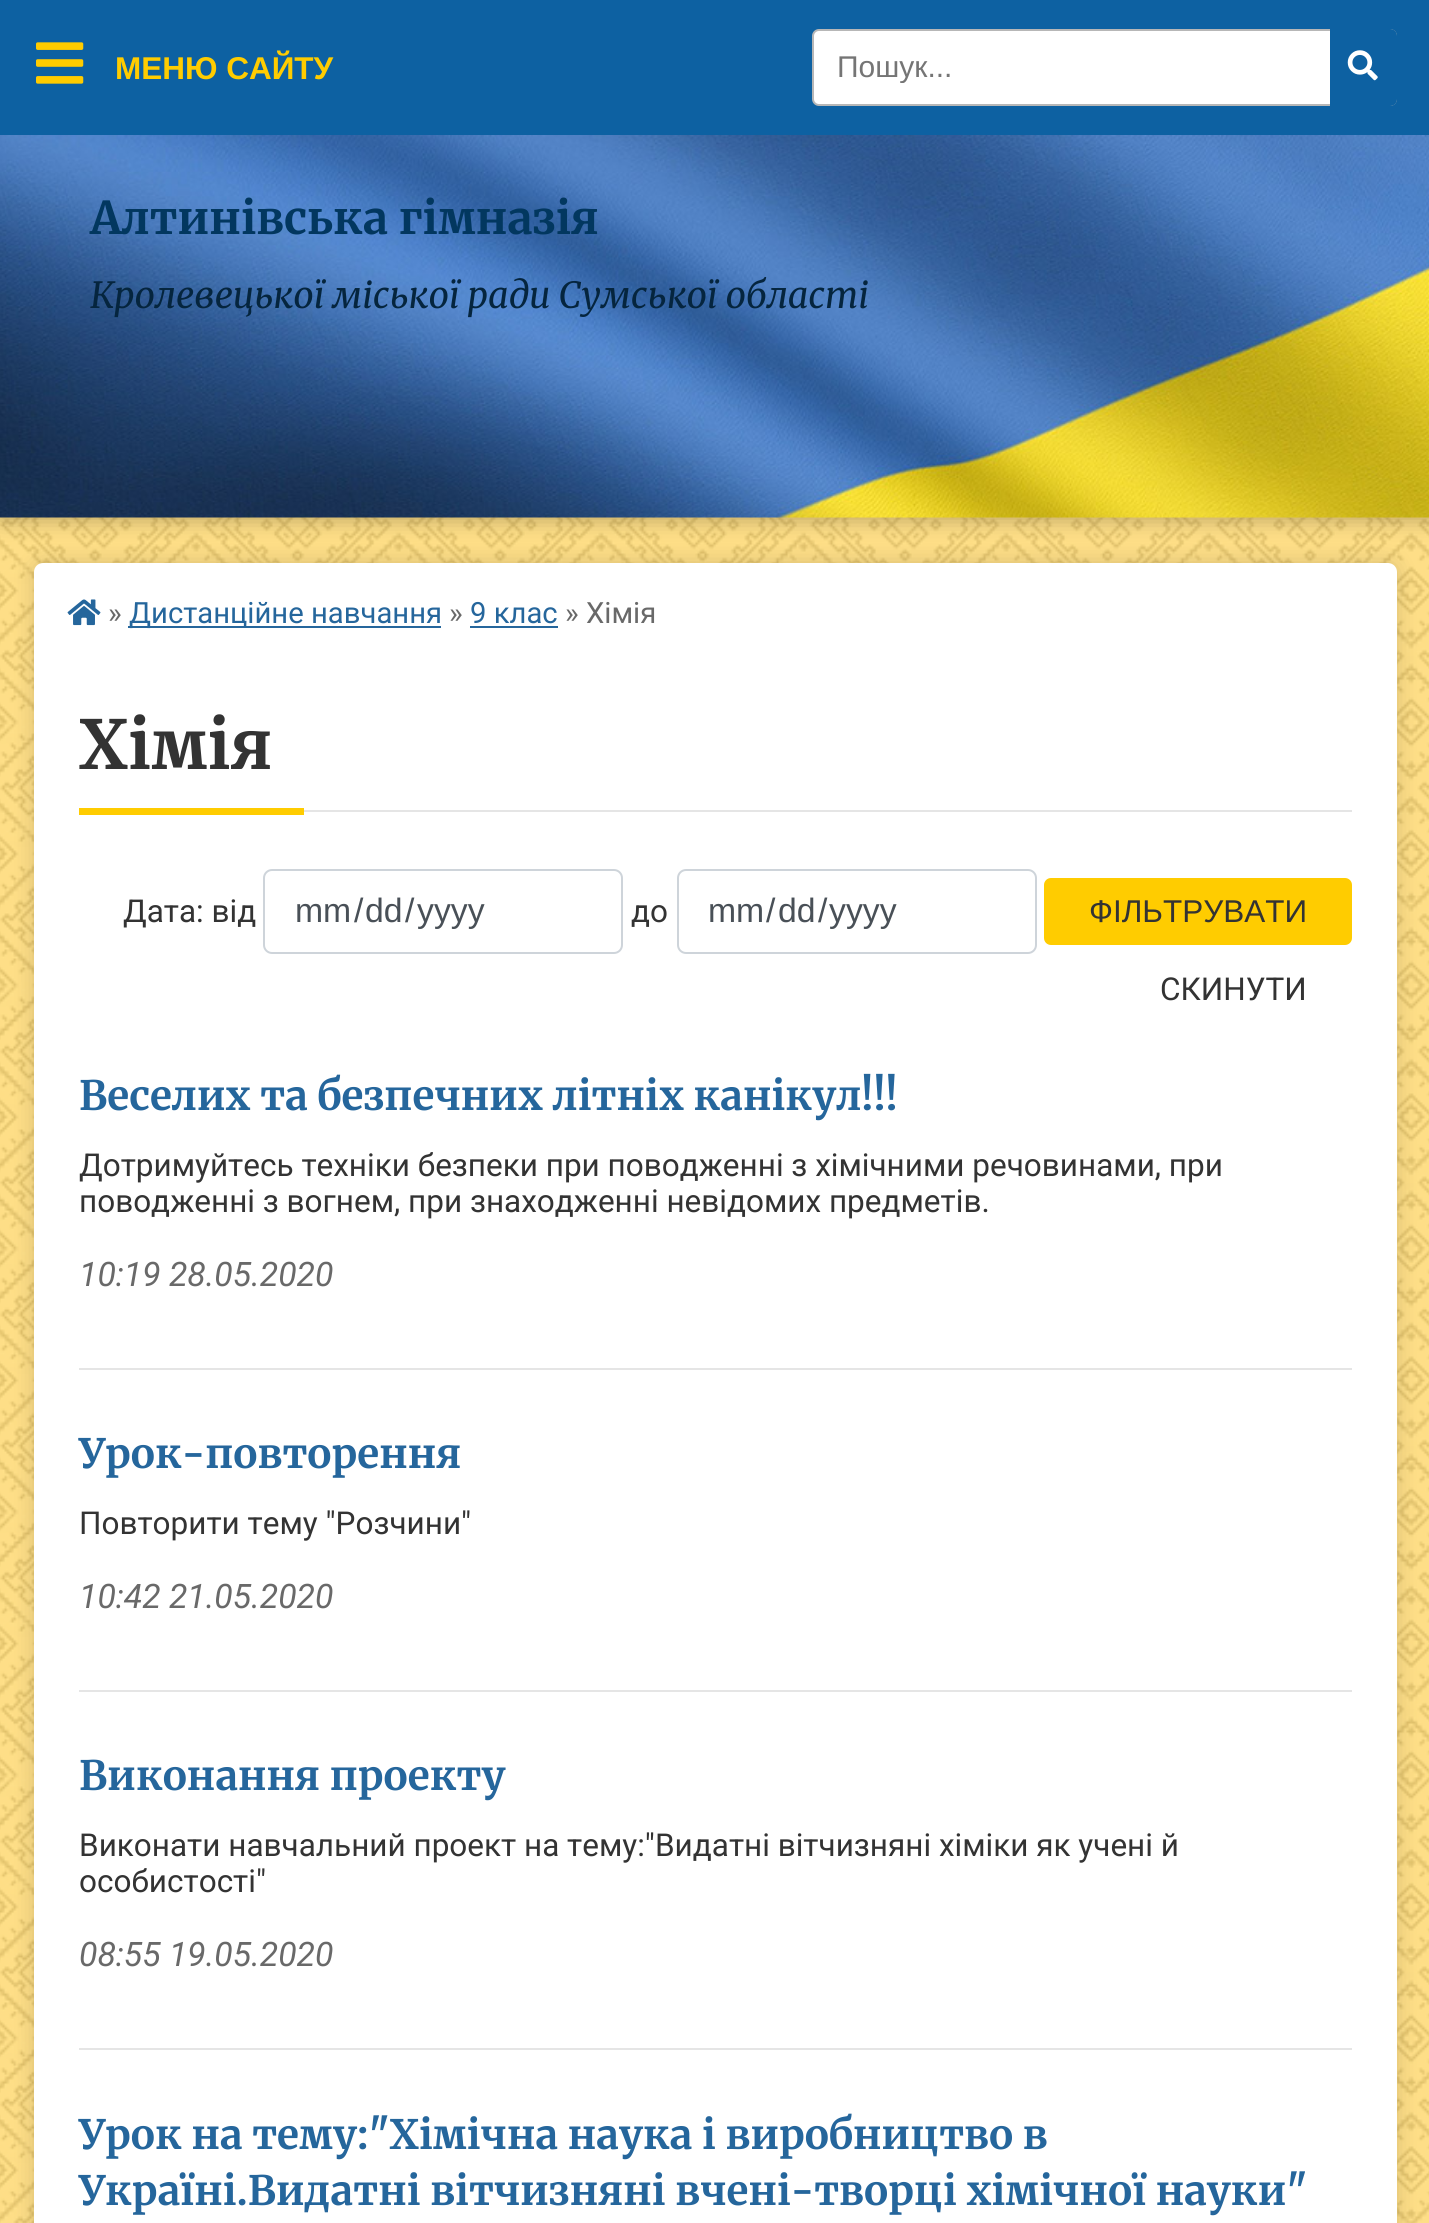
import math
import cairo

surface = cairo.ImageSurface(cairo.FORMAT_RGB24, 1429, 2223)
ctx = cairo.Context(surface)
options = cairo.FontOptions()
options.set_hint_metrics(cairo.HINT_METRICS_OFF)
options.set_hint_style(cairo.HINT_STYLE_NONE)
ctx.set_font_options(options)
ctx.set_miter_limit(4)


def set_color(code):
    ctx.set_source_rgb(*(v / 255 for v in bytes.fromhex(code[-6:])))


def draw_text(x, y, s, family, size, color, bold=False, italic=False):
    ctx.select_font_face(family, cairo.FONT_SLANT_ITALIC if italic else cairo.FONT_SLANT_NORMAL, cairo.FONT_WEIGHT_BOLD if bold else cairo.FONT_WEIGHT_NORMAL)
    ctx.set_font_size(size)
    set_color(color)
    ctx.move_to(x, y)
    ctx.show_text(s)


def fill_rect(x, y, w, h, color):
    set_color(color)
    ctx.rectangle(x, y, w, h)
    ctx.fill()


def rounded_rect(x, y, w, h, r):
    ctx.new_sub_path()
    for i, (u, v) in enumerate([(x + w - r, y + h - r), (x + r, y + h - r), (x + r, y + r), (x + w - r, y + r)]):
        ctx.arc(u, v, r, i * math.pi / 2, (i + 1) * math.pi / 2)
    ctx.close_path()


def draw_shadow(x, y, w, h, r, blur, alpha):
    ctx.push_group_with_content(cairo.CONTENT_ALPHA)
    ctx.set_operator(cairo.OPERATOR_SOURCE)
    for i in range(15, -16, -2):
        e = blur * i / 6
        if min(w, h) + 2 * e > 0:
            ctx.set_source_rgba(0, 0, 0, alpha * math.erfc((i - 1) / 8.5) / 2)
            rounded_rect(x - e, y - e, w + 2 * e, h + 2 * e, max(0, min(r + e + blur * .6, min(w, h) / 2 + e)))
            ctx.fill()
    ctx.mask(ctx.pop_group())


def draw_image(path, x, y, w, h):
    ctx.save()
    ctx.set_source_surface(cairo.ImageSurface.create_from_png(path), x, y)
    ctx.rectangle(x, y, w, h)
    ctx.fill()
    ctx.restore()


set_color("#ffda75")
ctx.paint()
draw_image("assets/img1.png", 0, 517, 1429, 1706)
set_color("#000000")
draw_shadow(34, 563, 1363, 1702, 9, 11, 0.15)
set_color("#ffffff")
rounded_rect(34, 563, 1363, 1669, 9)
ctx.fill()
set_color("#000000")
draw_shadow(0, 135, 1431, 383, 0, 11, 0.3)
fill_rect(0, 0, 1429, 135, "#0d61a2")
draw_image("assets/img2.png", 36, 42, 48, 42)
draw_text(115, 79, "МЕНЮ САЙТУ", "Liberation Sans", 31.5, "#ffcc00", bold=True)
draw_image("assets/img3.png", 67, 599, 34, 27)
draw_text(108, 623, "»", "Roboto", 29.25, "#696969")
fill_rect(128, 626, 313, 2, "#25669c")
draw_text(129, 623, "Дистанційне навчання", "Roboto", 29.25, "#25669c")
draw_text(449, 623, "»", "Roboto", 29.25, "#696969")
draw_text(470, 623, "9 клас", "Roboto", 29.25, "#25669c")
fill_rect(470, 626, 88, 2, "#25669c")
draw_text(565, 623, "» Хімія", "Roboto", 29.25, "#696969")
fill_rect(304, 810, 1048, 2, "#e5e5e5")
draw_text(79, 769, "Хімія", "Merriweather Light", 67.5, "#333333")
fill_rect(79, 808, 225, 7, "#ffcc00")
draw_text(123, 922, "Дата: від", "Roboto", 31.5, "#333333")
rounded_rect(264, 870, 358, 83, 8)
set_color("#ced4da")
ctx.stroke()
draw_text(295, 922, "mm", "Liberation Sans", 33.75, "#495057")
draw_text(354, 922, "/", "Liberation Sans", 33.75, "#495057")
draw_text(365, 922, "dd", "Liberation Sans", 33.75, "#495057")
draw_text(405, 922, "/", "Liberation Sans", 33.75, "#495057")
draw_text(417, 922, "yyyy", "Liberation Sans", 33.75, "#495057")
draw_text(631, 922, "до", "Roboto", 31.5, "#333333")
rounded_rect(678, 870, 358, 83, 8)
set_color("#ced4da")
ctx.stroke()
draw_text(708, 922, "mm", "Liberation Sans", 33.75, "#495057")
draw_text(766, 922, "/", "Liberation Sans", 33.75, "#495057")
draw_text(778, 922, "dd", "Liberation Sans", 33.75, "#495057")
draw_text(818, 922, "/", "Liberation Sans", 33.75, "#495057")
draw_text(829, 922, "yyyy", "Liberation Sans", 33.75, "#495057")
set_color("#ffcc00")
rounded_rect(1044, 878, 308, 67, 7)
ctx.fill()
draw_text(1089, 922, "ФІЛЬТРУВАТИ", "Liberation Sans", 31.5, "#333333")
draw_text(1160, 1000, "СКИНУТИ", "Roboto", 31.5, "#333333")
fill_rect(79, 1368, 1273, 2, "#e5e5e5")
draw_text(79, 1110, "Веселих та безпечних літніх канікул!!!", "Merriweather Light", 40.5, "#25669c")
draw_text(79, 1176, "Дотримуйтесь техніки безпеки при поводженні з хімічними речовинами, при", "Roboto", 31.5, "#333333")
draw_text(79, 1212, "поводженні з вогнем, при знаходженні невідомих предметів.", "Roboto", 31.5, "#333333")
draw_text(79, 1286, "10:19 28.05.2020", "Roboto", 33.75, "#696969", italic=True)
fill_rect(79, 1690, 1273, 2, "#e5e5e5")
draw_text(79, 1468, "Урок-повторення", "Merriweather Light", 40.5, "#25669c")
draw_text(79, 1534, "Повторити тему \"Розчини\"", "Roboto", 31.5, "#333333")
draw_text(79, 1608, "10:42 21.05.2020", "Roboto", 33.75, "#696969", italic=True)
fill_rect(79, 2048, 1273, 2, "#e5e5e5")
draw_text(79, 1790, "Виконання проекту", "Merriweather Light", 40.5, "#25669c")
draw_text(79, 1856, "Виконати навчальний проект на тему:\"Видатні вітчизняні хіміки як учені й", "Roboto", 31.5, "#333333")
draw_text(79, 1892, "особистості\"", "Roboto", 31.5, "#333333")
draw_text(79, 1966, "08:55 19.05.2020", "Roboto", 33.75, "#696969", italic=True)
draw_text(79, 2149, "Урок на тему:\"Хімічна наука і виробництво в", "Merriweather Light", 40.5, "#25669c")
draw_text(79, 2205, "Україні.Видатні вітчизняні вчені-творці хімічної науки\"", "Merriweather Light", 40.5, "#25669c")
set_color("#ffffff")
rounded_rect(813, 30, 583, 75, 6)
ctx.fill_preserve()
set_color("#b7b7b7")
ctx.stroke()
ctx.save()
ctx.rectangle(837, 50, 468, 33)
ctx.clip()
draw_text(837, 77, "Пошук...", "Liberation Sans", 30, "#757575")
ctx.restore()
set_color("#0d61a2")
ctx.new_path()
ctx.move_to(1330, 29)
ctx.line_to(1390, 29)
ctx.curve_to(1394, 29, 1397, 32, 1397, 36)
ctx.line_to(1397, 99)
ctx.curve_to(1397, 103, 1394, 106, 1390, 106)
ctx.line_to(1330, 106)
ctx.close_path()
ctx.fill()
draw_image("assets/img4.png", 1347, 50, 31, 31)
draw_image("assets/img5.png", 0, 135, 1429, 383)
draw_text(90, 234, "Алтинівська гімназія", "Merriweather Light", 45, "#02375f")
draw_text(90, 308, "Кролевецької міської ради Сумської області", "Merriweather Light", 36, "#05253e", italic=True)
surface.write_to_png("output.png")
